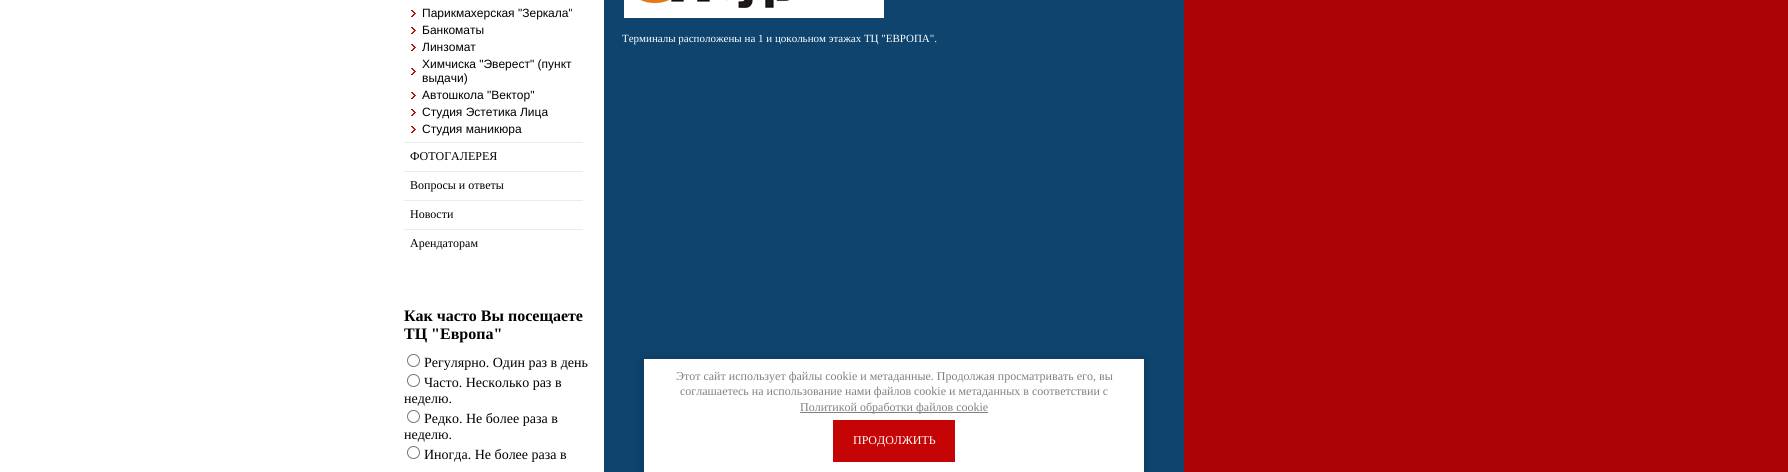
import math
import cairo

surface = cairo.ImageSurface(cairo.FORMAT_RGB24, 1788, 472)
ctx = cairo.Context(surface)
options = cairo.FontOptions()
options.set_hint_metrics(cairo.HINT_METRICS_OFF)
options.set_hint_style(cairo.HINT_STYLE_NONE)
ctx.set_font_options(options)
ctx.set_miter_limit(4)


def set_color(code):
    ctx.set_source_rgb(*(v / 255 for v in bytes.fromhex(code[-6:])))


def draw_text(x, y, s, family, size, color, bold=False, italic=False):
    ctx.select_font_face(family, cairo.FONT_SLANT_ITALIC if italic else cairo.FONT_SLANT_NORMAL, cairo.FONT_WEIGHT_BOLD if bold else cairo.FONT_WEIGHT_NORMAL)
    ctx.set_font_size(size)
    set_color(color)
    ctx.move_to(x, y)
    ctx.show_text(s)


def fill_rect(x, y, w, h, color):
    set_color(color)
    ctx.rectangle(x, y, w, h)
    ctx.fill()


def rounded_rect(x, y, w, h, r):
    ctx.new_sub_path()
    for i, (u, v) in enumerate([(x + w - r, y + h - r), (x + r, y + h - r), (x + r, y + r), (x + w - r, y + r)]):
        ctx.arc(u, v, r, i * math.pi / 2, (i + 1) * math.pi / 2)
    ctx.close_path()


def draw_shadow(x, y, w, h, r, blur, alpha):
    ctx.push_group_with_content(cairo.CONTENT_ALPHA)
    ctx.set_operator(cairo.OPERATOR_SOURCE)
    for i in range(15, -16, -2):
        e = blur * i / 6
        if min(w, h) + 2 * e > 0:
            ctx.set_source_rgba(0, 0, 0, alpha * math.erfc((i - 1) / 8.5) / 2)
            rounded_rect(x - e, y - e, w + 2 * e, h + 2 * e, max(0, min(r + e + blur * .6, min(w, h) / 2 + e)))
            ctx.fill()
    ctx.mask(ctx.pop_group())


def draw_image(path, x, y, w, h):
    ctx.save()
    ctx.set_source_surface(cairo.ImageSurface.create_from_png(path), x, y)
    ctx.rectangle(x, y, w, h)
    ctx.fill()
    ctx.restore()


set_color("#ffffff")
ctx.paint()
fill_rect(604, 0, 580, 472, "#0e446e")
fill_rect(1184, 0, 604, 472, "#ac0404")
draw_image("assets/img1.png", 411, 10, 5, 7)
draw_text(422, 17, "Парикмахерская \"Зеркала\"", "Liberation Sans", 12, "#000000")
draw_image("assets/img1.png", 411, 27, 5, 7)
draw_text(422, 34, "Банкоматы", "Liberation Sans", 12, "#000000")
draw_image("assets/img1.png", 411, 44, 5, 7)
draw_text(422, 51, "Линзомат", "Liberation Sans", 12, "#000000")
draw_image("assets/img1.png", 411, 68, 5, 7)
draw_text(422, 68, "Химчиска \"Эверест\" (пункт", "Liberation Sans", 12, "#000000")
draw_text(422, 82, "выдачи)", "Liberation Sans", 12, "#000000")
draw_image("assets/img1.png", 411, 92, 5, 7)
draw_text(422, 99, "Автошкола \"Вектор\"", "Liberation Sans", 12, "#000000")
draw_image("assets/img1.png", 411, 109, 5, 7)
draw_text(422, 116, "Студия Эстетика Лица", "Liberation Sans", 12, "#000000")
draw_image("assets/img1.png", 411, 126, 5, 7)
draw_text(422, 133, "Студия маникюра", "Liberation Sans", 12, "#000000")
fill_rect(404, 142, 179, 1, "#ebebeb")
draw_text(410, 160, "ФОТОГАЛЕРЕЯ", "Liberation Serif", 12, "#000000")
fill_rect(404, 171, 179, 1, "#ebebeb")
draw_text(410, 189, "Вопросы и ответы", "Liberation Serif", 12, "#000000")
fill_rect(404, 200, 179, 1, "#ebebeb")
draw_text(410, 218, "Новости", "Liberation Serif", 12, "#000000")
fill_rect(404, 229, 179, 1, "#ebebeb")
draw_text(410, 247, "Арендаторам", "Liberation Serif", 12, "#000000")
draw_text(404, 321, "Как часто Вы посещаете", "Liberation Serif", 16, "#000000", bold=True)
draw_text(404, 339, "ТЦ \"Европа\"", "Liberation Serif", 16, "#000000", bold=True)
ctx.new_path()
ctx.arc(413.5, 360.5, 6, 0, 2 * math.pi)
set_color("#767676")
ctx.set_line_width(1)
ctx.stroke()
draw_text(424, 367, "Регулярно. Один раз в день", "Liberation Serif", 14, "#000000")
ctx.new_path()
ctx.arc(413.5, 380.5, 6, 0, 2 * math.pi)
set_color("#767676")
ctx.stroke()
draw_text(424, 387, "Часто. Несколько раз в", "Liberation Serif", 14, "#000000")
draw_text(404, 403, "неделю.", "Liberation Serif", 14, "#000000")
ctx.new_path()
ctx.arc(413.5, 416.5, 6, 0, 2 * math.pi)
set_color("#767676")
ctx.stroke()
draw_text(424, 423, "Редко. Не более раза в", "Liberation Serif", 14, "#000000")
draw_text(404, 439, "неделю.", "Liberation Serif", 14, "#000000")
ctx.new_path()
ctx.arc(413.5, 452.5, 6, 0, 2 * math.pi)
set_color("#767676")
ctx.stroke()
draw_text(424, 459, "Иногда. Не более раза в", "Liberation Serif", 14, "#000000")
draw_image("assets/img2.png", 624, 0, 260, 18)
draw_text(622, 42, "Терминалы расположены на 1 и цокольном этажах ТЦ \"ЕВРОПА\".", "Liberation Serif", 11, "#ffffff")
set_color("#000000")
draw_shadow(644, 360, 500, 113, 0, 5, 0.23)
fill_rect(644, 359, 500, 113, "#ffffff")
draw_text(676, 380, "Этот сайт использует файлы cookie и метаданные. Продолжая просматривать его, вы", "Liberation Serif", 12, "#808080")
draw_text(680, 395, "соглашаетесь на использование нами файлов cookie и метаданных в соответствии с", "Liberation Serif", 12, "#808080")
fill_rect(800, 412, 188, 1, "#808080")
draw_text(800, 411, "Политикой обработки файлов cookie", "Liberation Serif", 12, "#808080")
fill_rect(833, 420, 122, 42, "#c50405")
draw_text(853, 444, "ПРОДОЛЖИТЬ", "Liberation Serif", 12, "#ffffff")
surface.write_to_png("output.png")
